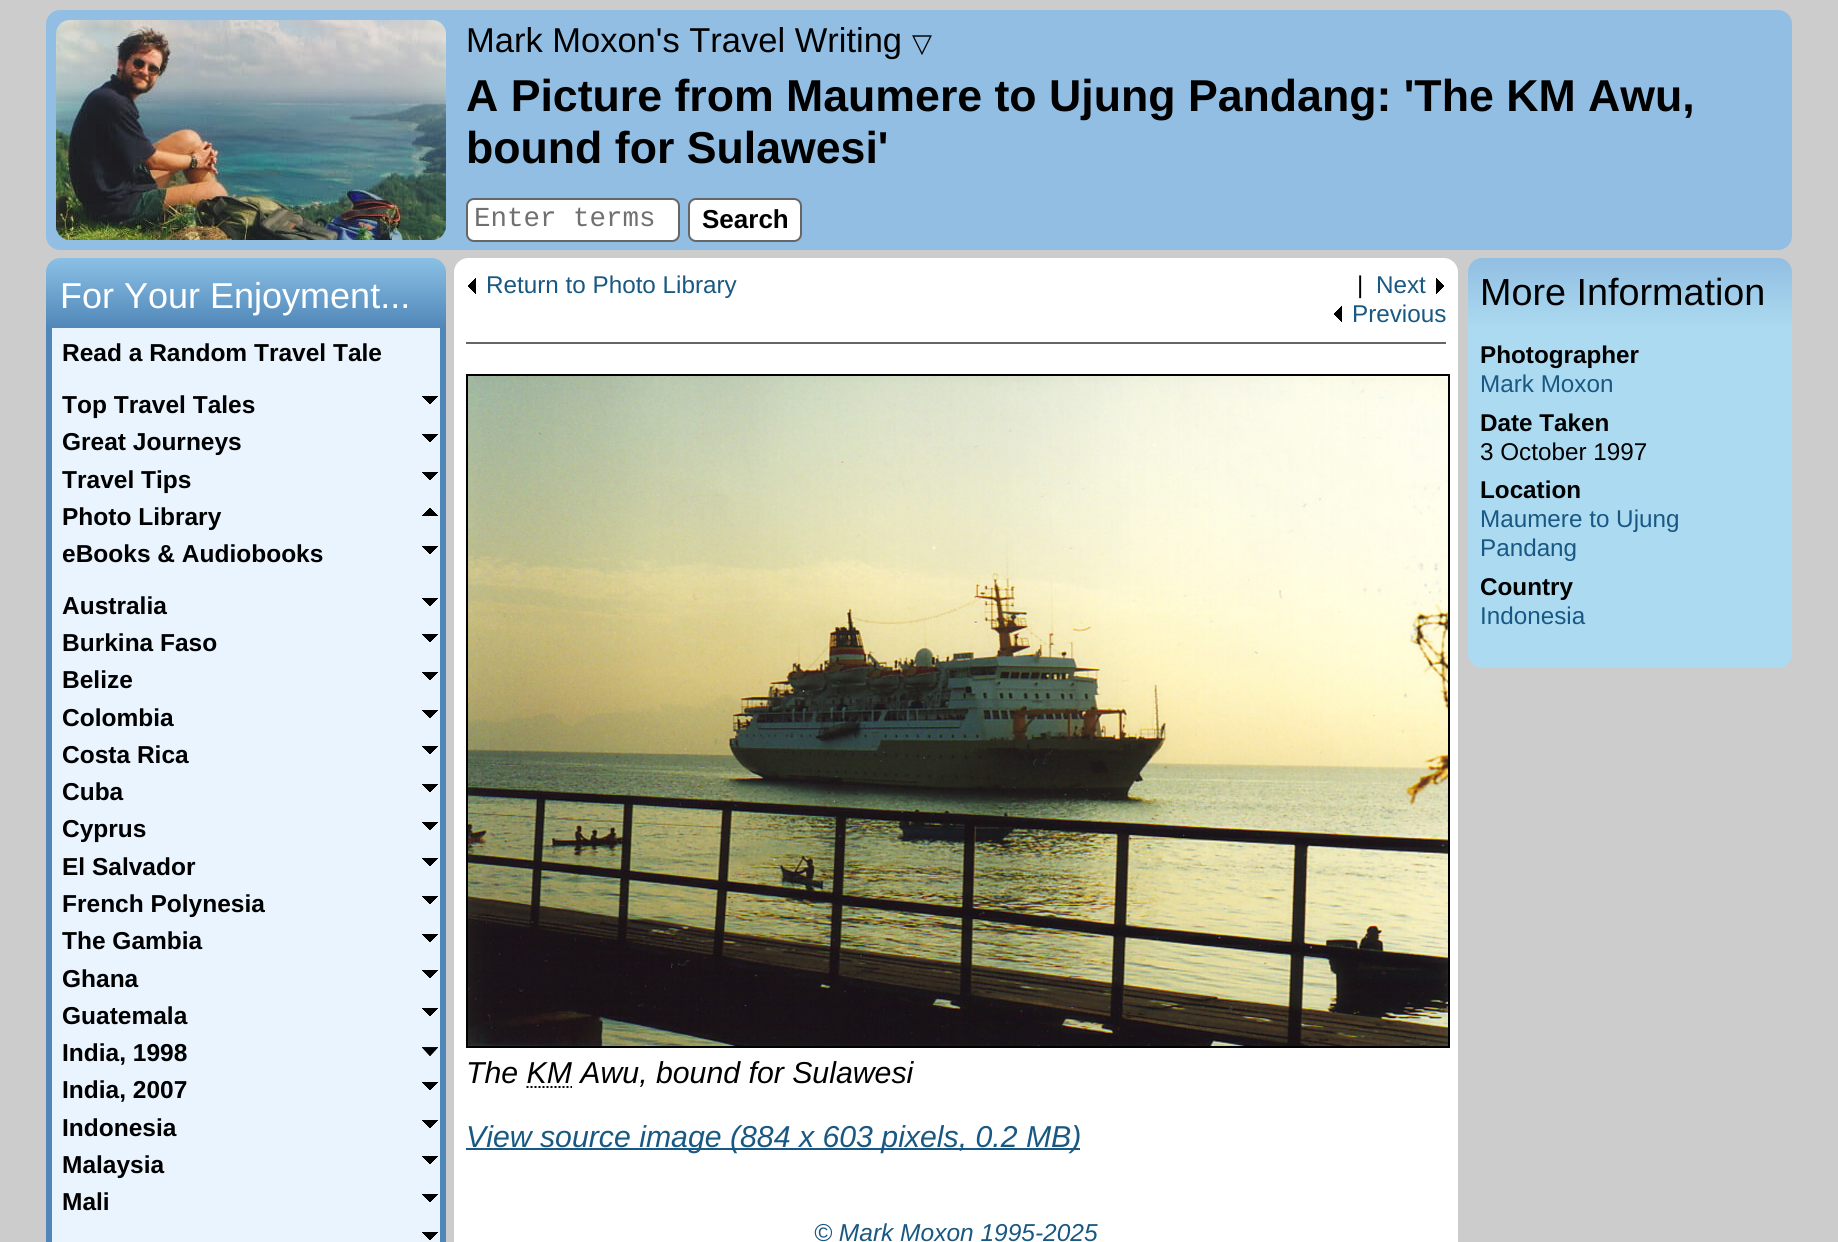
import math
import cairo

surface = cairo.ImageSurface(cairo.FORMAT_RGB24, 1838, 1242)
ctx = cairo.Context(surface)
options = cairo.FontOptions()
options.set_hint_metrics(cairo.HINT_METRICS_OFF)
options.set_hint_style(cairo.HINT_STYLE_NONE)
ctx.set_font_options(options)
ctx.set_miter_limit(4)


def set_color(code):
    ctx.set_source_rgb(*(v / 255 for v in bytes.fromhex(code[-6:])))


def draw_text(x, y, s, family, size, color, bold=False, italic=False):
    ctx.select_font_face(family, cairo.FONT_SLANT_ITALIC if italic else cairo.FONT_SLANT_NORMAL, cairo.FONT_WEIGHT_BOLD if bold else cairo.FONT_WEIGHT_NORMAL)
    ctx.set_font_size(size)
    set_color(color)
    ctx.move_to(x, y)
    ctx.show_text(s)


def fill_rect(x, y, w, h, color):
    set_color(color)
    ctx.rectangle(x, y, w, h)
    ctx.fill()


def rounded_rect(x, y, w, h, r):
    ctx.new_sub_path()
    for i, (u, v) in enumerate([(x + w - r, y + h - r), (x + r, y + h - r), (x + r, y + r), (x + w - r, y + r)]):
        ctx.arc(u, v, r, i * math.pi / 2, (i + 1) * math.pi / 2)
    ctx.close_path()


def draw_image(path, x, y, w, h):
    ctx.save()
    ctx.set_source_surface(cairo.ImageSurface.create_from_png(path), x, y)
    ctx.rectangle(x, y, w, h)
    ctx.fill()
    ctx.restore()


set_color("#cccccc")
ctx.paint()
set_color("#91bee2")
rounded_rect(46, 10, 1746, 240, 14)
ctx.fill()
draw_image("assets/img1.png", 56, 20, 390, 220)
draw_text(466, 52, "Mark Moxon's Travel Writing", "Liberation Sans", 34.5, "#000000")
draw_text(912, 52, "▽", "DejaVu Sans", 26, "#000000")
draw_text(466, 111, "A Picture from Maumere to Ujung Pandang: 'The KM Awu,", "Liberation Sans", 44.65, "#000000", bold=True)
draw_text(466, 163, "bound for Sulawesi'", "Liberation Sans", 44.65, "#000000", bold=True)
set_color("#ffffff")
rounded_rect(467, 199, 212, 42, 7)
ctx.fill_preserve()
set_color("#666666")
ctx.stroke()
draw_text(474, 226, "Enter terms", "Liberation Mono", 27.5, "#707070")
set_color("#ffffff")
rounded_rect(689, 199, 112, 42, 7)
ctx.fill_preserve()
set_color("#666666")
ctx.stroke()
draw_text(702, 228, "Search", "Liberation Sans", 26, "#000000", bold=True)
gradient = cairo.LinearGradient(246, 258, 246, 328)
gradient.add_color_stop_rgba(0, 0.545, 0.753, 0.898, 1)
gradient.add_color_stop_rgba(1, 0.314, 0.529, 0.722, 1)
ctx.set_source(gradient)
ctx.new_path()
ctx.move_to(60, 258)
ctx.line_to(432, 258)
ctx.curve_to(439.5, 258, 446, 264.5, 446, 272)
ctx.line_to(446, 328)
ctx.line_to(46, 328)
ctx.line_to(46, 272)
ctx.curve_to(46, 264.5, 52.5, 258, 60, 258)
ctx.close_path()
ctx.fill()
draw_text(60, 308, "For Your Enjoyment...", "Liberation Sans", 36, "#ffffff")
fill_rect(52, 328, 388, 914, "#e9f4ff")
set_color("#5087b8")
ctx.set_fill_rule(cairo.FILL_RULE_EVEN_ODD)
ctx.new_path()
ctx.move_to(46, 328)
ctx.line_to(446, 328)
ctx.line_to(446, 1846)
ctx.curve_to(446, 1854, 440, 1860, 432, 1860)
ctx.line_to(60, 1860)
ctx.curve_to(52, 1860, 46, 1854, 46, 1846)
ctx.close_path()
ctx.move_to(52, 328)
ctx.line_to(440, 328)
ctx.line_to(440, 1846)
ctx.curve_to(440, 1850, 436, 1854, 432, 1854)
ctx.line_to(60, 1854)
ctx.curve_to(56, 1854, 52, 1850, 52, 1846)
ctx.close_path()
ctx.fill()
draw_text(62, 361, "Read a Random Travel Tale", "Liberation Sans", 24.5, "#000000", bold=True)
draw_image("assets/img2.png", 422, 396, 16, 8)
draw_text(62, 413, "Top Travel Tales", "Liberation Sans", 24.5, "#000000", bold=True)
draw_image("assets/img2.png", 422, 434, 16, 8)
draw_text(62, 450, "Great Journeys", "Liberation Sans", 24.5, "#000000", bold=True)
draw_image("assets/img2.png", 422, 472, 16, 8)
draw_text(62, 488, "Travel Tips", "Liberation Sans", 24.5, "#000000", bold=True)
draw_image("assets/img3.png", 422, 508, 16, 8)
draw_text(62, 525, "Photo Library", "Liberation Sans", 24.5, "#000000", bold=True)
draw_image("assets/img2.png", 422, 546, 16, 8)
draw_text(62, 562, "eBooks & Audiobooks", "Liberation Sans", 24.5, "#000000", bold=True)
draw_image("assets/img2.png", 422, 598, 16, 8)
draw_text(62, 614, "Australia", "Liberation Sans", 24.5, "#000000", bold=True)
draw_image("assets/img2.png", 422, 634, 16, 8)
draw_text(62, 651, "Burkina Faso", "Liberation Sans", 24.5, "#000000", bold=True)
draw_image("assets/img2.png", 422, 672, 16, 8)
draw_text(62, 688, "Belize", "Liberation Sans", 24.5, "#000000", bold=True)
draw_image("assets/img2.png", 422, 710, 16, 8)
draw_text(62, 726, "Colombia", "Liberation Sans", 24.5, "#000000", bold=True)
draw_image("assets/img2.png", 422, 746, 16, 8)
draw_text(62, 763, "Costa Rica", "Liberation Sans", 24.5, "#000000", bold=True)
draw_image("assets/img2.png", 422, 784, 16, 8)
draw_text(62, 800, "Cuba", "Liberation Sans", 24.5, "#000000", bold=True)
draw_image("assets/img2.png", 422, 822, 16, 8)
draw_text(62, 837, "Cyprus", "Liberation Sans", 24.5, "#000000", bold=True)
draw_image("assets/img2.png", 422, 858, 16, 8)
draw_text(62, 875, "El Salvador", "Liberation Sans", 24.5, "#000000", bold=True)
draw_image("assets/img2.png", 422, 896, 16, 8)
draw_text(62, 912, "French Polynesia", "Liberation Sans", 24.5, "#000000", bold=True)
draw_image("assets/img2.png", 422, 934, 16, 8)
draw_text(62, 949, "The Gambia", "Liberation Sans", 24.5, "#000000", bold=True)
draw_image("assets/img2.png", 422, 970, 16, 8)
draw_text(62, 987, "Ghana", "Liberation Sans", 24.5, "#000000", bold=True)
draw_image("assets/img2.png", 422, 1008, 16, 8)
draw_text(62, 1024, "Guatemala", "Liberation Sans", 24.5, "#000000", bold=True)
draw_image("assets/img4.png", 422, 1047, 16, 9)
draw_text(62, 1061, "India, 1998", "Liberation Sans", 24.5, "#000000", bold=True)
draw_image("assets/img2.png", 422, 1082, 16, 8)
draw_text(62, 1098, "India, 2007", "Liberation Sans", 24.5, "#000000", bold=True)
draw_image("assets/img2.png", 422, 1120, 16, 8)
draw_text(62, 1136, "Indonesia", "Liberation Sans", 24.5, "#000000", bold=True)
draw_image("assets/img2.png", 422, 1156, 16, 8)
draw_text(62, 1173, "Malaysia", "Liberation Sans", 24.5, "#000000", bold=True)
draw_image("assets/img2.png", 422, 1194, 16, 8)
draw_text(62, 1210, "Mali", "Liberation Sans", 24.5, "#000000", bold=True)
draw_image("assets/img2.png", 422, 1232, 16, 8)
set_color("#ffffff")
ctx.new_path()
ctx.move_to(468, 258)
ctx.line_to(1444, 258)
ctx.curve_to(1451.5, 258, 1458, 264.5, 1458, 272)
ctx.line_to(1458, 1192)
ctx.line_to(454, 1192)
ctx.line_to(454, 272)
ctx.curve_to(454, 264.5, 460.5, 258, 468, 258)
ctx.close_path()
ctx.fill()
fill_rect(466, 342, 980, 2, "#666666")
draw_image("assets/img5.png", 468, 278, 8, 16)
draw_text(486, 293, "Return to Photo Library", "Liberation Sans", 24.25, "#185882")
draw_text(1357, 293, "|", "Liberation Sans", 24.25, "#000000")
draw_image("assets/img6.png", 1436, 278, 8, 16)
draw_text(1376, 293, "Next", "Liberation Sans", 24.25, "#185882")
draw_image("assets/img5.png", 1334, 306, 8, 16)
draw_text(1352, 322, "Previous", "Liberation Sans", 24.25, "#185882")
gradient = cairo.LinearGradient(1630, 258, 1630, 328)
gradient.add_color_stop_rgba(0, 0.569, 0.745, 0.886, 1)
gradient.add_color_stop_rgba(1, 0.675, 0.855, 0.941, 1)
ctx.set_source(gradient)
ctx.new_path()
ctx.move_to(1482, 258)
ctx.line_to(1778, 258)
ctx.curve_to(1785.5, 258, 1792, 264.5, 1792, 272)
ctx.line_to(1792, 328)
ctx.line_to(1468, 328)
ctx.line_to(1468, 272)
ctx.curve_to(1468, 264.5, 1474.5, 258, 1482, 258)
ctx.close_path()
ctx.fill()
draw_text(1480, 305, "More Information", "Liberation Sans", 37.75, "#000000")
set_color("#acdaf0")
ctx.new_path()
ctx.move_to(1468, 328)
ctx.line_to(1792, 328)
ctx.line_to(1792, 654)
ctx.curve_to(1792, 661.5, 1785.5, 668, 1778, 668)
ctx.line_to(1482, 668)
ctx.curve_to(1474.5, 668, 1468, 661.5, 1468, 654)
ctx.close_path()
ctx.fill()
draw_text(1480, 363, "Photographer", "Liberation Sans", 24.25, "#000000", bold=True)
draw_text(1480, 392, "Mark Moxon", "Liberation Sans", 24.25, "#185882")
draw_text(1480, 431, "Date Taken", "Liberation Sans", 24.25, "#000000", bold=True)
draw_text(1480, 460, "3 October 1997", "Liberation Sans", 24.25, "#000000")
draw_text(1480, 498, "Location", "Liberation Sans", 24.25, "#000000", bold=True)
draw_text(1480, 527, "Maumere to Ujung", "Liberation Sans", 24.25, "#185882")
draw_text(1480, 556, "Pandang", "Liberation Sans", 24.25, "#185882")
draw_text(1480, 595, "Country", "Liberation Sans", 24.25, "#000000", bold=True)
draw_text(1480, 624, "Indonesia", "Liberation Sans", 24.25, "#185882")
ctx.rectangle(467, 375, 982, 672)
set_color("#000000")
ctx.stroke()
draw_image("assets/img7.png", 468, 376, 980, 670)
draw_text(466, 1083, "The KM Awu, bound for Sulawesi", "Liberation Sans", 30.25, "#000000", italic=True)
ctx.new_path()
ctx.move_to(526.5, 1087)
ctx.line_to(572, 1087)
ctx.set_dash([2, 2])
ctx.stroke()
fill_rect(466, 1148, 614, 2, "#185882")
draw_text(466, 1147, "View source image (884 x 603 pixels, 0.2 MB)", "Liberation Sans", 30.25, "#185882", italic=True)
fill_rect(454, 1192, 1004, 50, "#ffffff")
draw_text(814, 1241, "© Mark Moxon 1995-2025", "Liberation Sans", 24.5, "#185882", italic=True)
surface.write_to_png("output.png")
